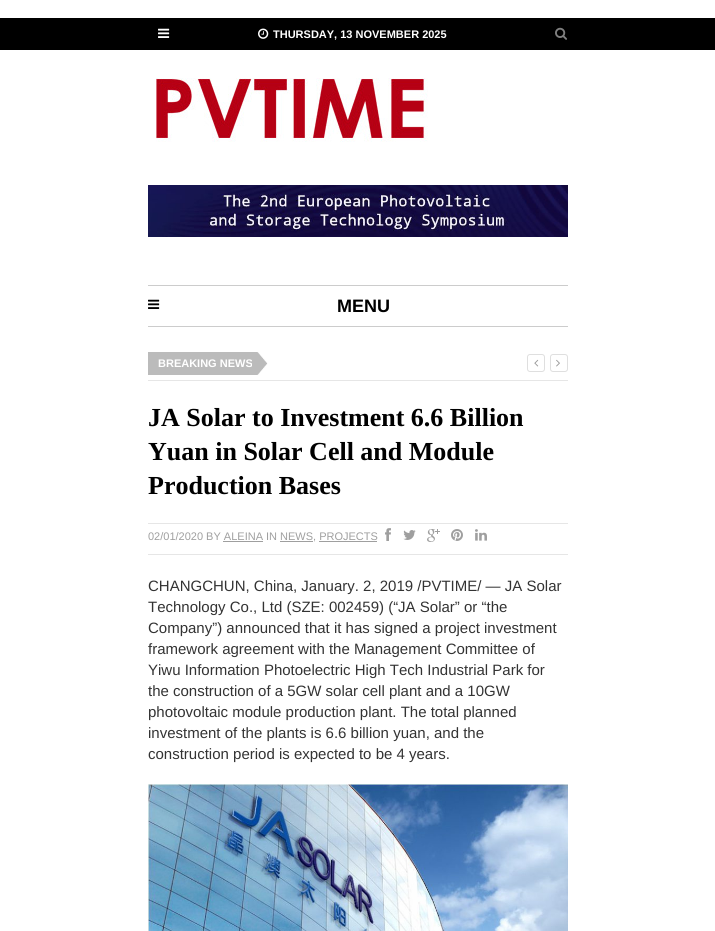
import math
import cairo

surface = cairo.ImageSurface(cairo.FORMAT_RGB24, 715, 931)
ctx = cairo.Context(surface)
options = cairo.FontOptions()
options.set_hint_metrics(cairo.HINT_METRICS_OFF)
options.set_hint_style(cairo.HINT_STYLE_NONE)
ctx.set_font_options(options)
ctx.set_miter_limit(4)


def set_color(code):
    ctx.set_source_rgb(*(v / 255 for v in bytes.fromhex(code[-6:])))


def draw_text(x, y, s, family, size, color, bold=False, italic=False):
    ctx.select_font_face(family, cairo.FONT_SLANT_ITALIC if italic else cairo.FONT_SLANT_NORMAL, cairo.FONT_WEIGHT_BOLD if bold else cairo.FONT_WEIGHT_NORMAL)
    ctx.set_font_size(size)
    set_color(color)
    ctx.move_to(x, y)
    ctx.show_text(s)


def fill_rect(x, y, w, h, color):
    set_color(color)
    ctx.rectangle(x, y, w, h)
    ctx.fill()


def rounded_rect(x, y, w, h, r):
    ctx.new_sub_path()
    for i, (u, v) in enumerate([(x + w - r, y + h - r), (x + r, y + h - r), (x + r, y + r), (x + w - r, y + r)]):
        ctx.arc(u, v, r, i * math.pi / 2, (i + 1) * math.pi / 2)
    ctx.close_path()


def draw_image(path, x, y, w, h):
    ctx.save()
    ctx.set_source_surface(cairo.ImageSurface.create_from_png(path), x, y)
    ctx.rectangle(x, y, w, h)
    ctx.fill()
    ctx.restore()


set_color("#ffffff")
ctx.paint()
fill_rect(0, 18, 715, 32, "#000000")
draw_image("assets/img1.png", 158, 28, 12, 10)
draw_image("assets/img2.png", 258, 28, 11, 11)
draw_text(273, 38, "THURSDAY, 13 NOVEMBER 2025", "Liberation Sans", 11, "#ffffff", bold=True)
draw_image("assets/img3.png", 555, 27, 12, 13)
draw_image("assets/img4.png", 156, 78, 272, 64)
draw_image("assets/img5.png", 148, 185, 420, 52)
fill_rect(148, 285, 420, 1, "#cccccc")
fill_rect(148, 326, 420, 1, "#cccccc")
draw_image("assets/img6.png", 148, 299, 12, 10)
draw_text(337, 312, "MENU", "Liberation Sans", 18, "#000000", bold=True)
fill_rect(148, 380, 420, 1, "#e6e6e6")
draw_image("assets/img7.png", 148, 352, 120, 23)
draw_text(158, 367, "BREAKING NEWS", "Liberation Sans", 11, "#ffffff", bold=True)
rounded_rect(527.5, 354.5, 17, 17, 2.5)
set_color("#dfdfdf")
ctx.set_line_width(1)
ctx.stroke()
draw_image("assets/img8.png", 534, 359, 5, 8)
rounded_rect(550.5, 354.5, 17, 17, 2.5)
ctx.stroke()
draw_image("assets/img9.png", 556, 359, 4, 8)
draw_text(148, 426, "JA Solar to Investment 6.6 Billion", "Liberation Serif", 26, "#000000", bold=True)
draw_text(148, 460, "Yuan in Solar Cell and Module", "Liberation Serif", 26, "#000000", bold=True)
draw_text(148, 494, "Production Bases", "Liberation Serif", 26, "#000000", bold=True)
fill_rect(148, 523, 420, 1, "#e6e6e6")
fill_rect(148, 554, 420, 1, "#e6e6e6")
draw_text(148, 540, "02/01/2020 BY ALEINA IN NEWS, PROJECTS", "Liberation Sans", 11, "#9f9f9f")
fill_rect(223, 541, 40, 1, "#9f9f9f")
fill_rect(280, 541, 33, 1, "#9f9f9f")
fill_rect(319, 541, 58, 1, "#9f9f9f")
draw_image("assets/img10.png", 385, 528, 6, 13)
draw_image("assets/img11.png", 403, 530, 13, 10)
draw_image("assets/img12.png", 427, 529, 13, 13)
draw_image("assets/img13.png", 451, 529, 12, 12)
draw_image("assets/img14.png", 475, 529, 12, 12)
draw_text(148, 591, "CHANGCHUN, China, January. 2, 2019 /PVTIME/ — JA Solar", "Liberation Sans", 15, "#333333")
draw_text(148, 612, "Technology Co., Ltd (SZE: 002459) (“JA Solar” or “the", "Liberation Sans", 15, "#333333")
draw_text(148, 633, "Company”) announced that it has signed a project investment", "Liberation Sans", 15, "#333333")
draw_text(148, 654, "framework agreement with the Management Committee of", "Liberation Sans", 15, "#333333")
draw_text(148, 675, "Yiwu Information Photoelectric High Tech Industrial Park for", "Liberation Sans", 15, "#333333")
draw_text(148, 696, "the construction of a 5GW solar cell plant and a 10GW", "Liberation Sans", 15, "#333333")
draw_text(148, 717, "photovoltaic module production plant. The total planned", "Liberation Sans", 15, "#333333")
draw_text(148, 738, "investment of the plants is 6.6 billion yuan, and the", "Liberation Sans", 15, "#333333")
draw_text(148, 759, "construction period is expected to be 4 years.", "Liberation Sans", 15, "#333333")
draw_image("assets/img15.png", 148, 784, 420, 147)
surface.write_to_png("output.png")
